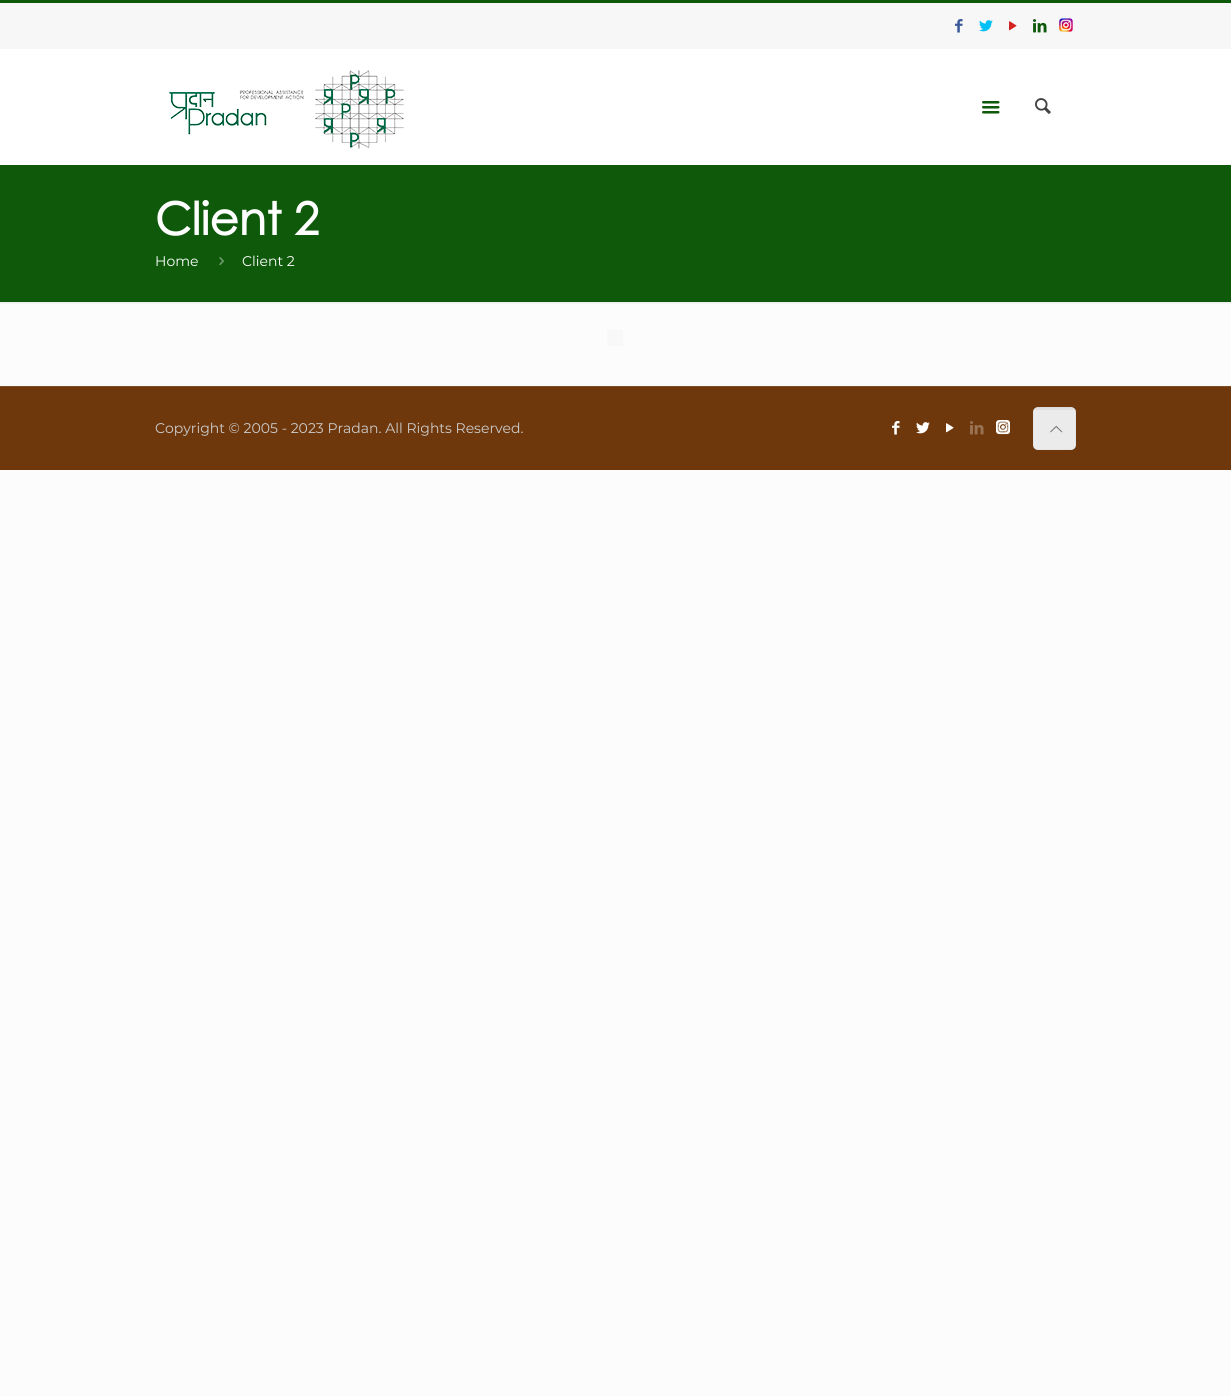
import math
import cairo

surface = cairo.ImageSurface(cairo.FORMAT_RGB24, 1231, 1396)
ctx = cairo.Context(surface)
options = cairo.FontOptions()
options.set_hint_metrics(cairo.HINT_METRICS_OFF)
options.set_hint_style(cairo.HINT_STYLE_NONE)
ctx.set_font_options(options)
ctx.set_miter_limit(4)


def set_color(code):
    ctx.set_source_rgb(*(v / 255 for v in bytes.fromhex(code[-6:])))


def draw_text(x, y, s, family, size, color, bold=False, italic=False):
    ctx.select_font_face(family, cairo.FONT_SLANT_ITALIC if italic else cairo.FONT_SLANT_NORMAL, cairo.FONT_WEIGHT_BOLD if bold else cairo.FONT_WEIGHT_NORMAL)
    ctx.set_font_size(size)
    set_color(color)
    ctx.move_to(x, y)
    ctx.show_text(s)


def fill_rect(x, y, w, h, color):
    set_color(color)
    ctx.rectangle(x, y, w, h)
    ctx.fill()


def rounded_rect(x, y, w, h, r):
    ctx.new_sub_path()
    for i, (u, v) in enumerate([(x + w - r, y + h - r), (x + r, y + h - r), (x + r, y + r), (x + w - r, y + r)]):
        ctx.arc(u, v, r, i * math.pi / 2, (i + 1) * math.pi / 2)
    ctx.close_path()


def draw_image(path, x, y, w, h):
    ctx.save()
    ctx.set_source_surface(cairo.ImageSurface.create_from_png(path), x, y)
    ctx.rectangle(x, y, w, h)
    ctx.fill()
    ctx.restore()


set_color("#fcfcfc")
ctx.paint()
fill_rect(0, 3, 1231, 46, "#f7f7f7")
fill_rect(0, 0, 1231, 3, "#0e590a")
draw_image("assets/img1.png", 955, 19, 8, 14)
draw_image("assets/img2.png", 979, 20, 14, 12)
draw_image("assets/img3.png", 1009, 21, 8, 10)
draw_image("assets/img4.png", 1033, 19, 14, 14)
draw_image("assets/img5.png", 1059, 18, 14, 14)
fill_rect(0, 49, 1231, 116, "#ffffff")
draw_image("assets/img6.png", 169, 70, 235, 79)
draw_image("assets/img7.png", 982, 101, 18, 13)
draw_image("assets/img8.png", 1035, 98, 16, 16)
fill_rect(0, 165, 1231, 137, "#0e590a")
draw_text(155, 235, "Client 2", "Century Gothic", 45, "#ffffff", bold=True)
draw_text(155, 266, "Home", "Montserrat", 14, "#ffffff")
draw_image("assets/img9.png", 219, 257, 5, 8)
draw_text(242, 266, "Client 2", "Montserrat", 14, "#ffffff")
draw_image("assets/img10.png", 0, 302, 1231, 2)
fill_rect(607, 330, 16, 16, "#f8f8f8")
fill_rect(0, 387, 1231, 83, "#6e380c")
fill_rect(0, 386, 1231, 1, "#7d4c24")
draw_text(155, 433, "Copyright © 2005 - 2023 Pradan. All Rights Reserved.", "Montserrat", 14, "#cccccc")
draw_image("assets/img11.png", 892, 421, 8, 14)
draw_image("assets/img12.png", 916, 422, 14, 12)
draw_image("assets/img13.png", 946, 423, 8, 10)
draw_image("assets/img14.png", 970, 421, 14, 14)
draw_image("assets/img15.png", 996, 420, 14, 14)
draw_image("assets/img16.png", 997, 421, 13, 14)
set_color("#f7f7f7")
rounded_rect(1033, 407, 43, 43, 5)
ctx.fill()
ctx.set_source_rgba(0, 0, 0, 0.05)
ctx.rectangle(1034, 407, 41, 3)
ctx.fill()
ctx.rectangle(1033.5, 407.5, 42, 42)
ctx.set_source_rgba(0, 0, 0, 0.03)
ctx.set_line_width(1)
ctx.stroke()
ctx.set_source_rgba(0, 0, 0, 0.05)
ctx.rectangle(1033, 407, 43, 43)
ctx.fill()
draw_image("assets/img17.png", 1050, 425, 13, 8)
surface.write_to_png("output.png")
